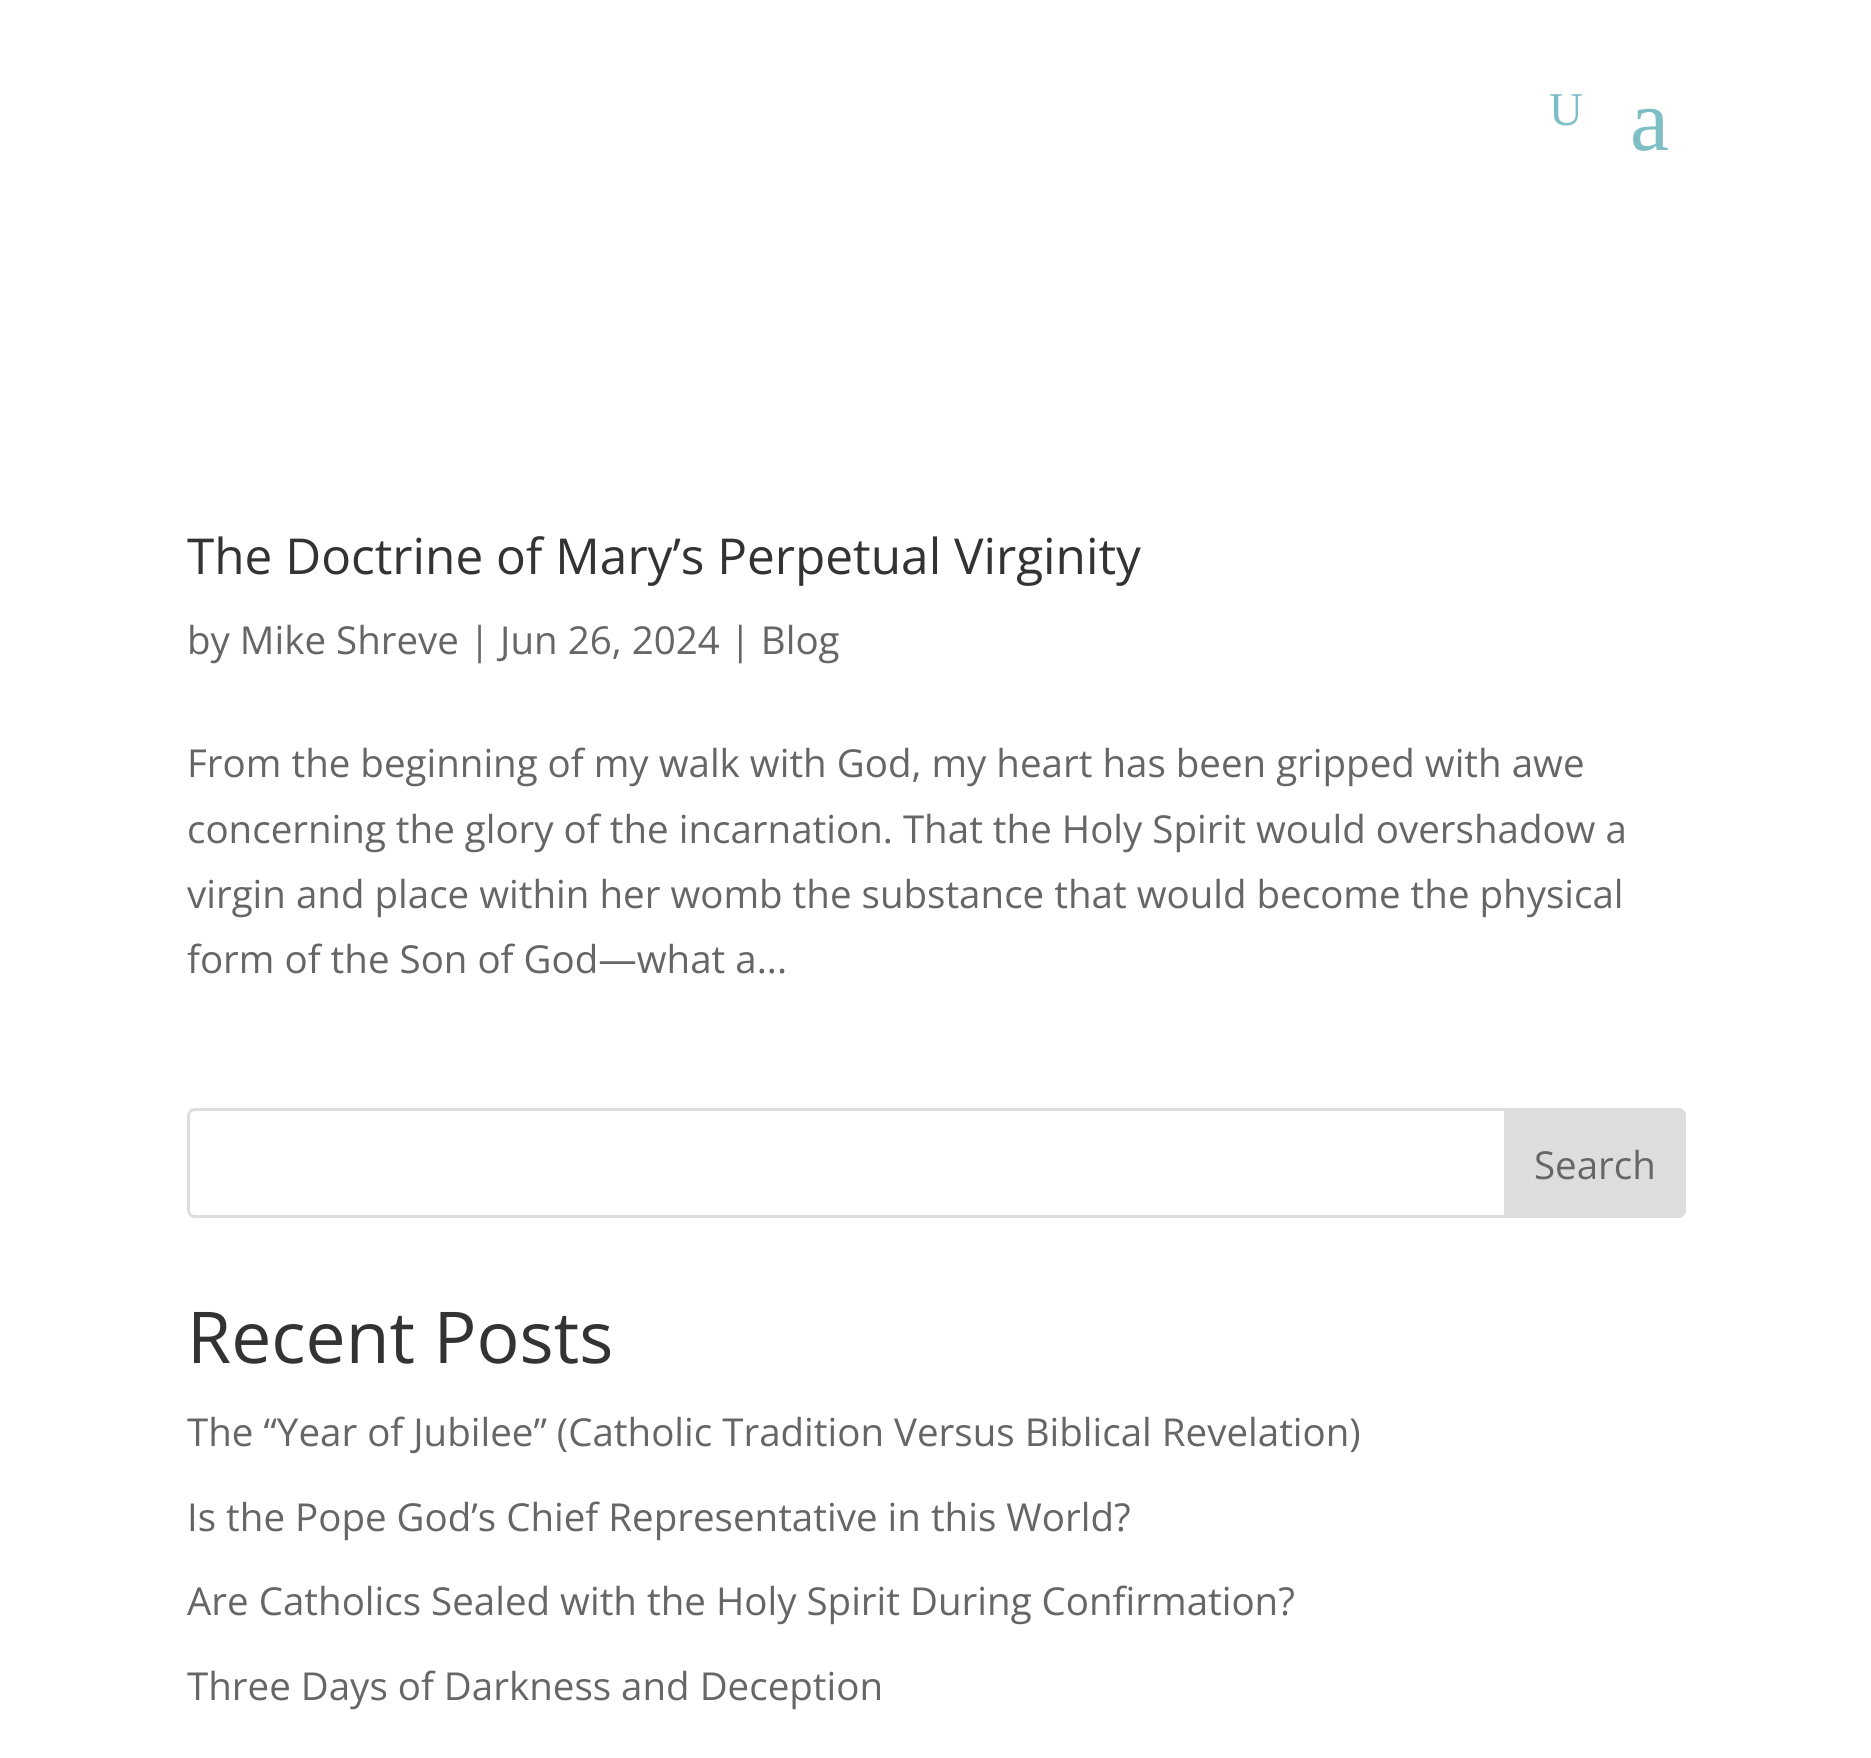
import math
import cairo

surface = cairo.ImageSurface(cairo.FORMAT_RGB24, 1871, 1758)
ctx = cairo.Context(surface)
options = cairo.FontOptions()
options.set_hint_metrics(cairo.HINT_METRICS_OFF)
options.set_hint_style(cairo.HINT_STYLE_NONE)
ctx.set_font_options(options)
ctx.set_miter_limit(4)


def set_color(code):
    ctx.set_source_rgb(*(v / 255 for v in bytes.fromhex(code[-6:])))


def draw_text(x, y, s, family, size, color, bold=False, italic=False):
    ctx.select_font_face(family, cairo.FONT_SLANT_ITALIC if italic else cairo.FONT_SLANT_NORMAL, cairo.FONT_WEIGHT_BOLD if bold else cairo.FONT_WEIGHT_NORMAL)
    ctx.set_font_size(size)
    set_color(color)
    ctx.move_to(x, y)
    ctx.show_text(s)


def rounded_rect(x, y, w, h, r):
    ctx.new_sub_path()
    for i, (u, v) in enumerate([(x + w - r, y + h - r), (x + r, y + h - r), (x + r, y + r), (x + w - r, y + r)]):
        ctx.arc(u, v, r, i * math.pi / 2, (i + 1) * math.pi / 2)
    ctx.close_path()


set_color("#ffffff")
ctx.paint()
draw_text(1549, 125, "U", "Liberation Serif", 47, "#7ebec5")
draw_text(1630, 150, "a", "Liberation Serif", 88, "#7ebec5")
draw_text(187, 574, "The Doctrine of Mary’s Perpetual Virginity", "Open Sans", 49.5, "#333333")
draw_text(187, 654, "by Mike Shreve | Jun 26, 2024 | Blog", "Open Sans", 38.5, "#666666")
draw_text(187, 777, "From the beginning of my walk with God, my heart has been gripped with awe", "Open Sans", 38.5, "#666666")
draw_text(187, 843, "concerning the glory of the incarnation. That the Holy Spirit would overshadow a", "Open Sans", 38.5, "#666666")
draw_text(187, 908, "virgin and place within her womb the substance that would become the physical", "Open Sans", 38.5, "#666666")
draw_text(187, 973, "form of the Son of God—what a...", "Open Sans", 38.5, "#666666")
rounded_rect(188.5, 1109.5, 1496, 107, 6.5)
set_color("#dddddd")
ctx.set_line_width(3)
ctx.stroke()
ctx.new_path()
ctx.move_to(1505.5, 1109.5)
ctx.line_to(1678, 1109.5)
ctx.curve_to(1681.5, 1109.5, 1684.5, 1112.5, 1684.5, 1116)
ctx.line_to(1684.5, 1210)
ctx.curve_to(1684.5, 1213.5, 1681.5, 1216.5, 1678, 1216.5)
ctx.line_to(1505.5, 1216.5)
ctx.close_path()
ctx.fill_preserve()
ctx.stroke()
draw_text(1534, 1179, "Search", "Open Sans", 38.5, "#666666")
draw_text(187, 1363, "Recent Posts", "Open Sans", 71.5, "#333333")
draw_text(187, 1446, "The “Year of Jubilee” (Catholic Tradition Versus Biblical Revelation)", "Open Sans", 38.5, "#666666")
draw_text(187, 1531, "Is the Pope God’s Chief Representative in this World?", "Open Sans", 38.5, "#666666")
draw_text(187, 1615, "Are Catholics Sealed with the Holy Spirit During Confirmation?", "Open Sans", 38.5, "#666666")
draw_text(187, 1700, "Three Days of Darkness and Deception", "Open Sans", 38.5, "#666666")
surface.write_to_png("output.png")
